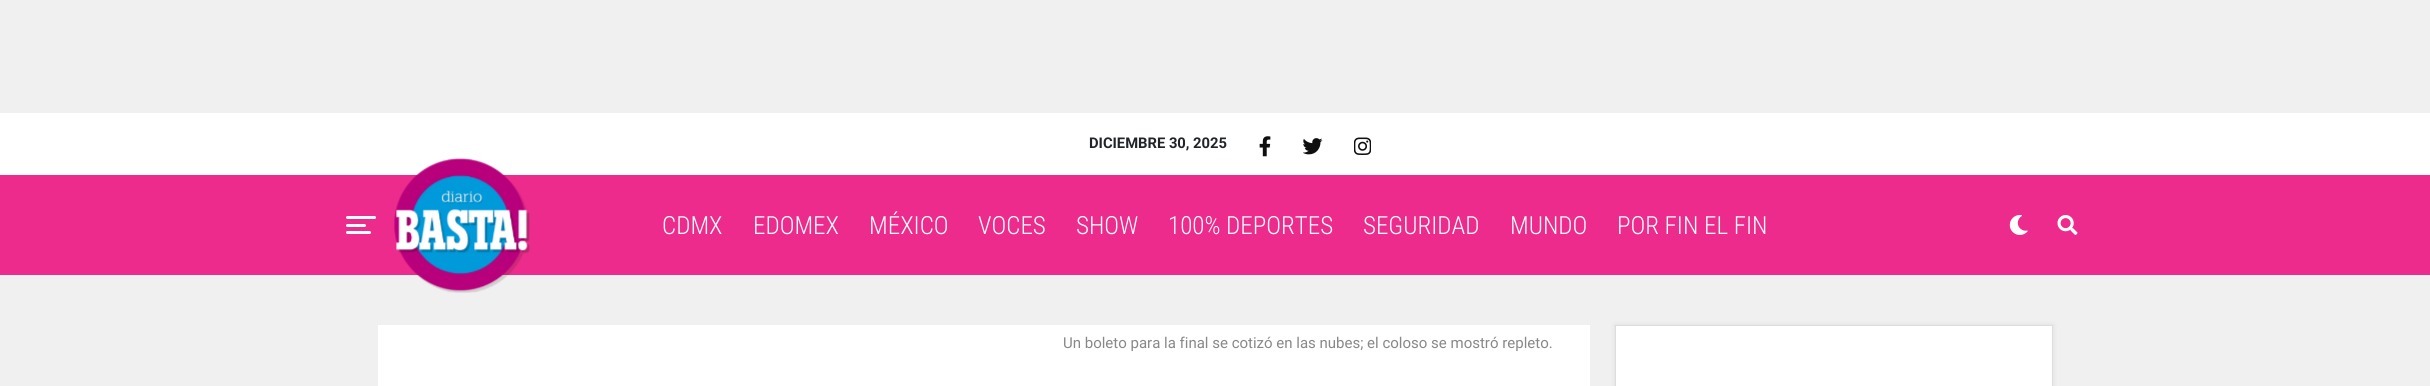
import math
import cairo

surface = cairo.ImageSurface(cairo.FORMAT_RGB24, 2430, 386)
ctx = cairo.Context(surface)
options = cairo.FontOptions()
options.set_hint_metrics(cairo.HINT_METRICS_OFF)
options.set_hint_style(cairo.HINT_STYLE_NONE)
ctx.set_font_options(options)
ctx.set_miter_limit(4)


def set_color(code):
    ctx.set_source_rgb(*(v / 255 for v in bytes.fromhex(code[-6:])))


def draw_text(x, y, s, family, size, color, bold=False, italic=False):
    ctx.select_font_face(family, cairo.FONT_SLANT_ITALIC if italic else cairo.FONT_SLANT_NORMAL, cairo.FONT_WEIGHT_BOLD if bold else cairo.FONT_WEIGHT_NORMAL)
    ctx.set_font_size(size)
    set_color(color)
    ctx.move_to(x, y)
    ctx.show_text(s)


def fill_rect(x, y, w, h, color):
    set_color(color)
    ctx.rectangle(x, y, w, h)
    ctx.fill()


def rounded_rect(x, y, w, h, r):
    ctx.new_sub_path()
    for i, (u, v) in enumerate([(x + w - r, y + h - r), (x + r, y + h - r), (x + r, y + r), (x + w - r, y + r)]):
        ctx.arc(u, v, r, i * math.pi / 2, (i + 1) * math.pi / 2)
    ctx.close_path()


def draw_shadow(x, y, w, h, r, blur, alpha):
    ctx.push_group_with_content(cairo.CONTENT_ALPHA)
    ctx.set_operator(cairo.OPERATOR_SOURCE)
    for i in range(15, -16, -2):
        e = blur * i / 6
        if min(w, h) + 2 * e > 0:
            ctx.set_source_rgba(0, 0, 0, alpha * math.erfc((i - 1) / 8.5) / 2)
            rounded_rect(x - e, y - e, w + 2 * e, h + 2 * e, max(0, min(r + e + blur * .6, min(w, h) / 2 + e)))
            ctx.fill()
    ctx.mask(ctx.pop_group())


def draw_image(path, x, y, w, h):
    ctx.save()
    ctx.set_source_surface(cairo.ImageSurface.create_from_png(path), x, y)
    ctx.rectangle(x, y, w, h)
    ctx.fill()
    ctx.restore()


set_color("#f0f0f0")
ctx.paint()
fill_rect(0, 113, 2430, 62, "#ffffff")
draw_text(1089, 148, "DICIEMBRE 30, 2025", "Roboto", 14.75, "#212529", bold=True)
draw_image("assets/img1.png", 1259, 136, 12, 21)
draw_image("assets/img2.png", 1303, 138, 20, 17)
draw_image("assets/img3.png", 1354, 137, 17, 18)
fill_rect(0, 175, 2430, 100, "#ec2b8c")
set_color("#ffffff")
rounded_rect(346, 216, 30, 3, 1.5)
ctx.fill()
rounded_rect(346, 224, 20, 3, 1.5)
ctx.fill()
rounded_rect(346, 231, 25, 3, 1.5)
ctx.fill()
draw_image("assets/img4.png", 394, 158, 136, 135)
draw_text(662, 234, "CDMX", "Roboto Condensed Light", 25, "#ffffff")
draw_text(753, 234, "EDOMEX", "Roboto Condensed Light", 25, "#ffffff")
draw_text(869, 234, "MÉXICO", "Roboto Condensed Light", 25, "#ffffff")
draw_text(978, 234, "VOCES", "Roboto Condensed Light", 25, "#ffffff")
draw_text(1076, 234, "SHOW", "Roboto Condensed Light", 25, "#ffffff")
draw_text(1168, 234, "100% DEPORTES", "Roboto Condensed Light", 25, "#ffffff")
draw_text(1363, 234, "SEGURIDAD", "Roboto Condensed Light", 25, "#ffffff")
draw_text(1510, 234, "MUNDO", "Roboto Condensed Light", 25, "#ffffff")
draw_text(1617, 234, "POR FIN EL FIN", "Roboto Condensed Light", 25, "#ffffff")
draw_image("assets/img5.png", 2009, 215, 19, 20)
draw_image("assets/img6.png", 2057, 215, 21, 20)
fill_rect(378, 325, 1212, 61, "#ffffff")
draw_text(1063, 348, "Un boleto para la final se cotizó en las nubes; el coloso se mostró repleto.", "Roboto", 15, "#888888")
set_color("#000000")
draw_shadow(1614, 324, 440, 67, 0, 2, 0.06)
set_color("#ffffff")
ctx.rectangle(1615.5, 325.5, 437, 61)
ctx.fill_preserve()
set_color("#dddddd")
ctx.set_line_width(1)
ctx.stroke()
surface.write_to_png("output.png")
